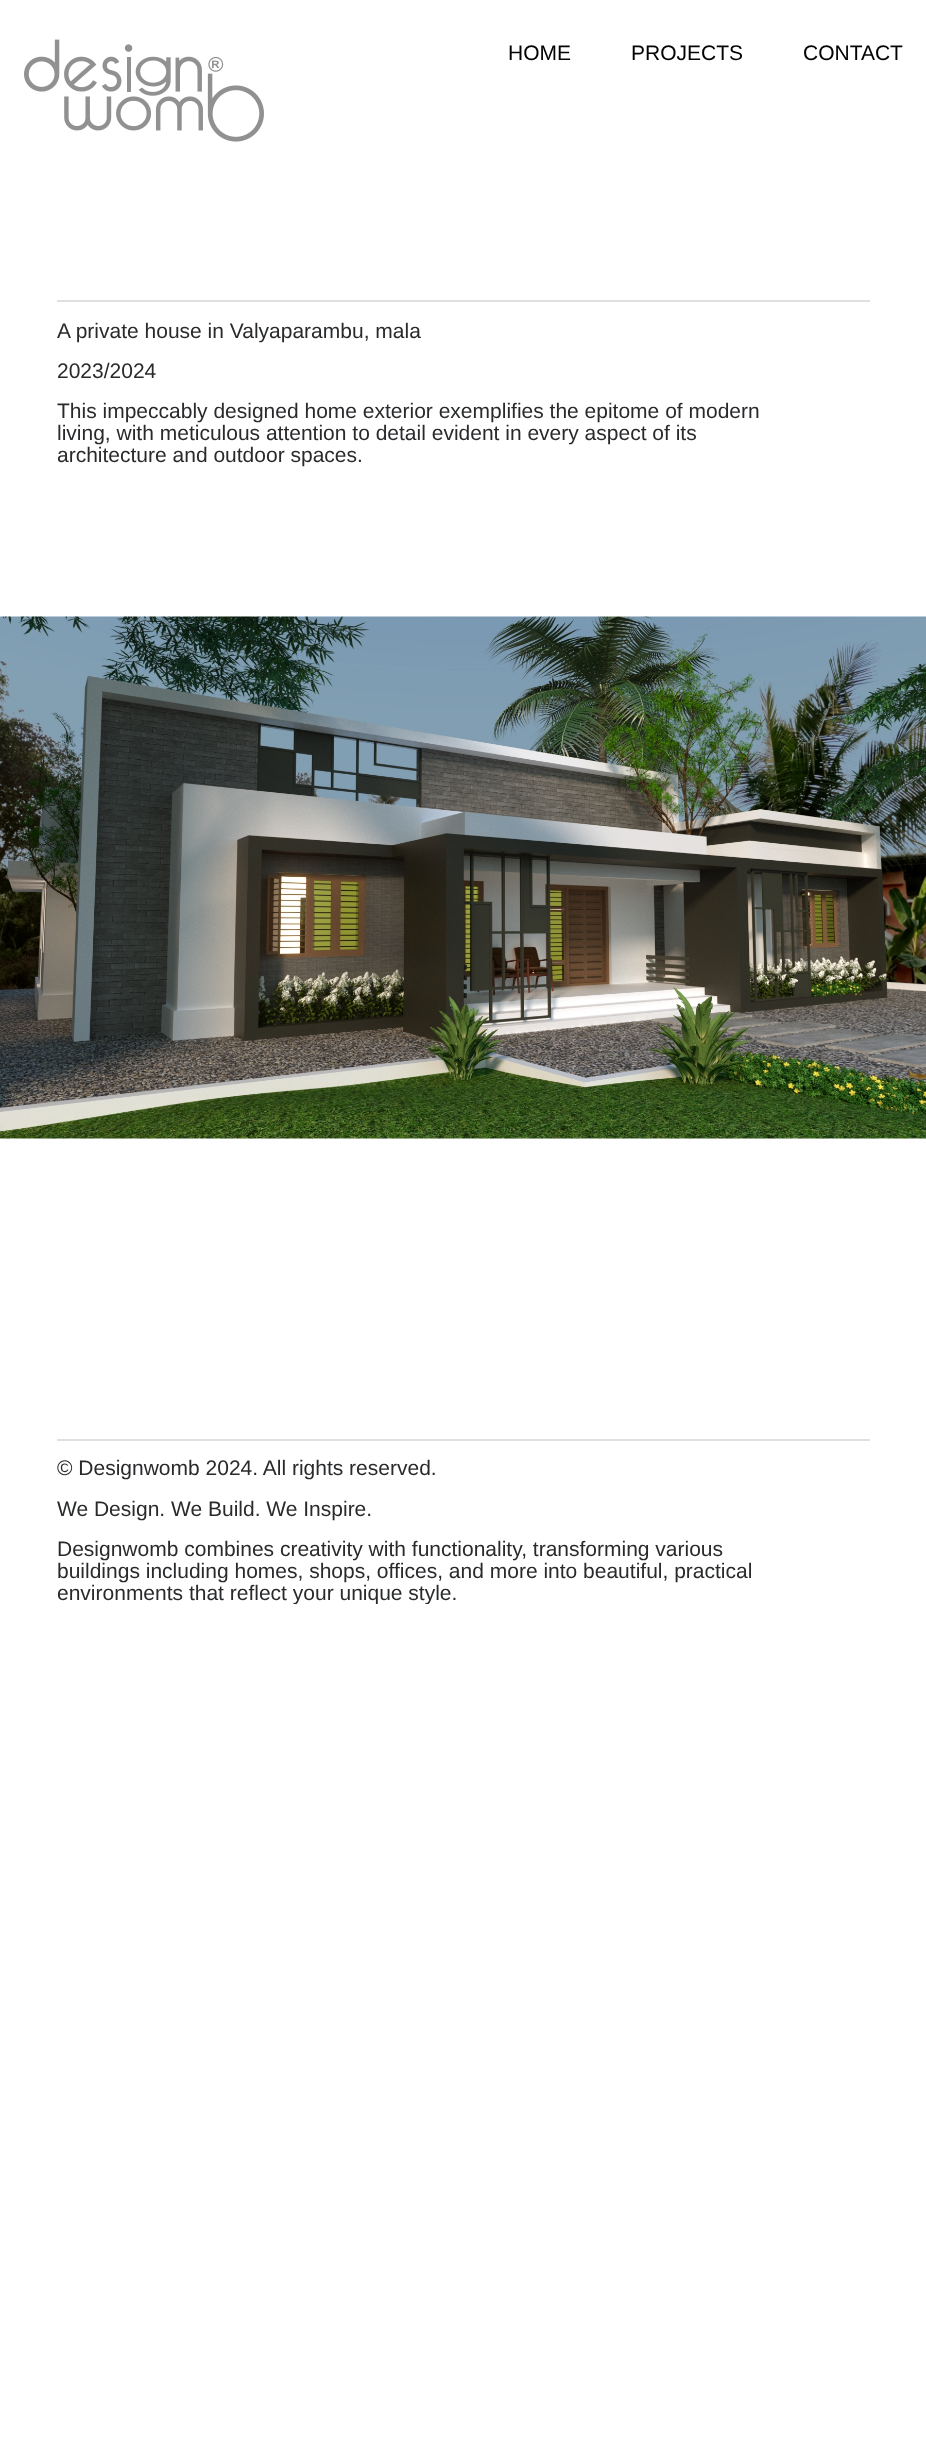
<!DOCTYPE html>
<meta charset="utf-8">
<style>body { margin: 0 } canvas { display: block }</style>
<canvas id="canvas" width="926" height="2450"></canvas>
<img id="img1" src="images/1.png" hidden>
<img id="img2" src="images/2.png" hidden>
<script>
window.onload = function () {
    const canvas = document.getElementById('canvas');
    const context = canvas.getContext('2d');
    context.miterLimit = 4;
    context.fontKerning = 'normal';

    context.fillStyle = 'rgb(255, 255, 255)';
    context.fillRect(0, 0, 926, 2450);
    context.drawImage(document.getElementById('img1'), 24, 39, 240, 103);
    context.fillStyle = 'rgb(224, 224, 224)';
    context.fillRect(57, 300, 813, 2);
    context.drawImage(document.getElementById('img2'), 0, 616, 926, 523);
    context.fillRect(57, 1439, 813, 2);
    context.font = '21px Liberation Sans';
    context.fillStyle = 'rgb(2, 2, 2)';
    context.fillText('HOME', 508, 60);
    context.fillText('PROJECTS', 631, 60);
    context.fillText('CONTACT', 803, 60);
    context.fillStyle = 'rgb(41, 42, 44)';
    context.fillText('A private house in Valyaparambu, mala', 57, 338);
    context.fillText('2023/2024', 57, 378);
    context.fillText('This impeccably designed home exterior exemplifies the epitome of modern', 57, 418);
    context.fillText('living, with meticulous attention to detail evident in every aspect of its', 57, 440);
    context.fillText('architecture and outdoor spaces.', 57, 462);
    context.fillText('© Designwomb 2024. All rights reserved.', 57, 1475);
    context.fillText('We Design. We Build. We Inspire.', 57, 1516);
    context.fillText('Designwomb combines creativity with functionality, transforming various', 57, 1556);
    context.fillText('buildings including homes, shops, offices, and more into beautiful, practical', 57, 1578);
    context.fillText('environments that reflect your unique style.', 57, 1600);
    context.fillStyle = 'rgb(255, 255, 255)';
    context.fillRect(293, 1604, 135, 1);
};
</script>
